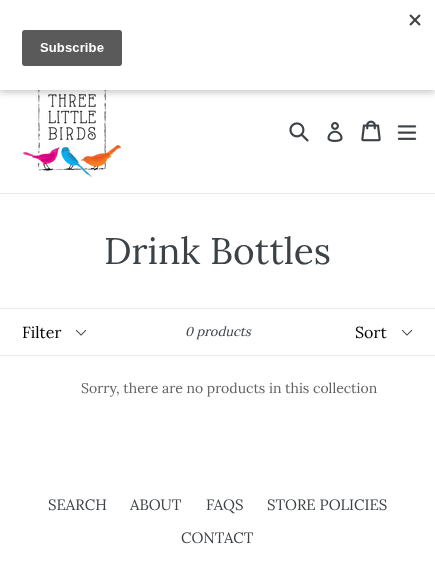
<!DOCTYPE html>
<meta charset="utf-8">
<style>body { margin: 0 } canvas { display: block }</style>
<canvas id="canvas" width="435" height="587"></canvas>
<img id="img1" src="images/2.png" hidden>
<img id="img2" src="images/1.png" hidden>
<img id="img3" src="images/3.png" hidden>
<img id="img4" src="images/4.png" hidden>
<img id="img5" src="images/5.png" hidden>
<img id="img6" src="images/6.png" hidden>
<img id="img7" src="images/7.png" hidden>
<script>
window.onload = function () {
    const canvas = document.getElementById('canvas');
    const context = canvas.getContext('2d');
    context.miterLimit = 4;
    context.fontKerning = 'normal';

    context.fillStyle = 'rgb(255, 255, 255)';
    context.fillRect(0, 0, 435, 587);
    context.drawImage(document.getElementById('img1'), 23, 90, 98, 88);
    context.fillStyle = 'rgba(0, 0, 0, 0.2)';
    context.filter = 'blur(3px)';
    context.beginPath();
    context.rect(0, 3, 435, 90);
    context.fill();
    context.filter = 'none';
    context.fillStyle = 'rgb(255, 255, 255)';
    context.fillRect(0, 0, 435, 90);
    context.drawImage(document.getElementById('img2'), 22, 14, 399, 52);
    context.fillStyle = 'rgb(232, 233, 235)';
    context.fillRect(0, 193, 435, 1);
    context.drawImage(document.getElementById('img3'), 289, 122, 20, 20);
    context.drawImage(document.getElementById('img4'), 327, 122, 16, 20);
    context.drawImage(document.getElementById('img5'), 361, 120, 20, 22);
    context.drawImage(document.getElementById('img6'), 397, 125, 20, 15);
    context.fillRect(0, 308, 435, 1);
    context.fillRect(0, 355, 435, 1);
    context.drawImage(document.getElementById('img7'), 75, 329, 12, 7);
    context.drawImage(document.getElementById('img7'), 401, 329, 12, 7);
    context.font = '37px Lora';
    context.fillStyle = 'rgb(61, 66, 70)';
    context.fillText('Drink Bottles', 104, 264);
    context.font = '16px Lora';
    context.fillStyle = 'rgb(0, 0, 0)';
    context.fillText('Filter', 22, 338);
    context.font = 'italic 13px Lora';
    context.fillStyle = 'rgb(61, 66, 70)';
    context.fillText('0 products', 185, 336);
    context.font = '16px Lora';
    context.fillStyle = 'rgb(0, 0, 0)';
    context.fillText('Sort', 355, 338);
    context.font = '14px Lora';
    context.fillStyle = 'rgb(96, 96, 96)';
    context.fillText('Sorry, there are no products in this collection', 81, 393);
    context.font = '15px Lora';
    context.fillStyle = 'rgb(61, 66, 70)';
    context.fillText('SEARCH', 48, 510);
    context.fillText('ABOUT', 130, 510);
    context.fillText('FAQS', 206, 510);
    context.fillText('STORE POLICIES', 267, 510);
    context.fillText('CONTACT', 181, 543);
};
</script>
